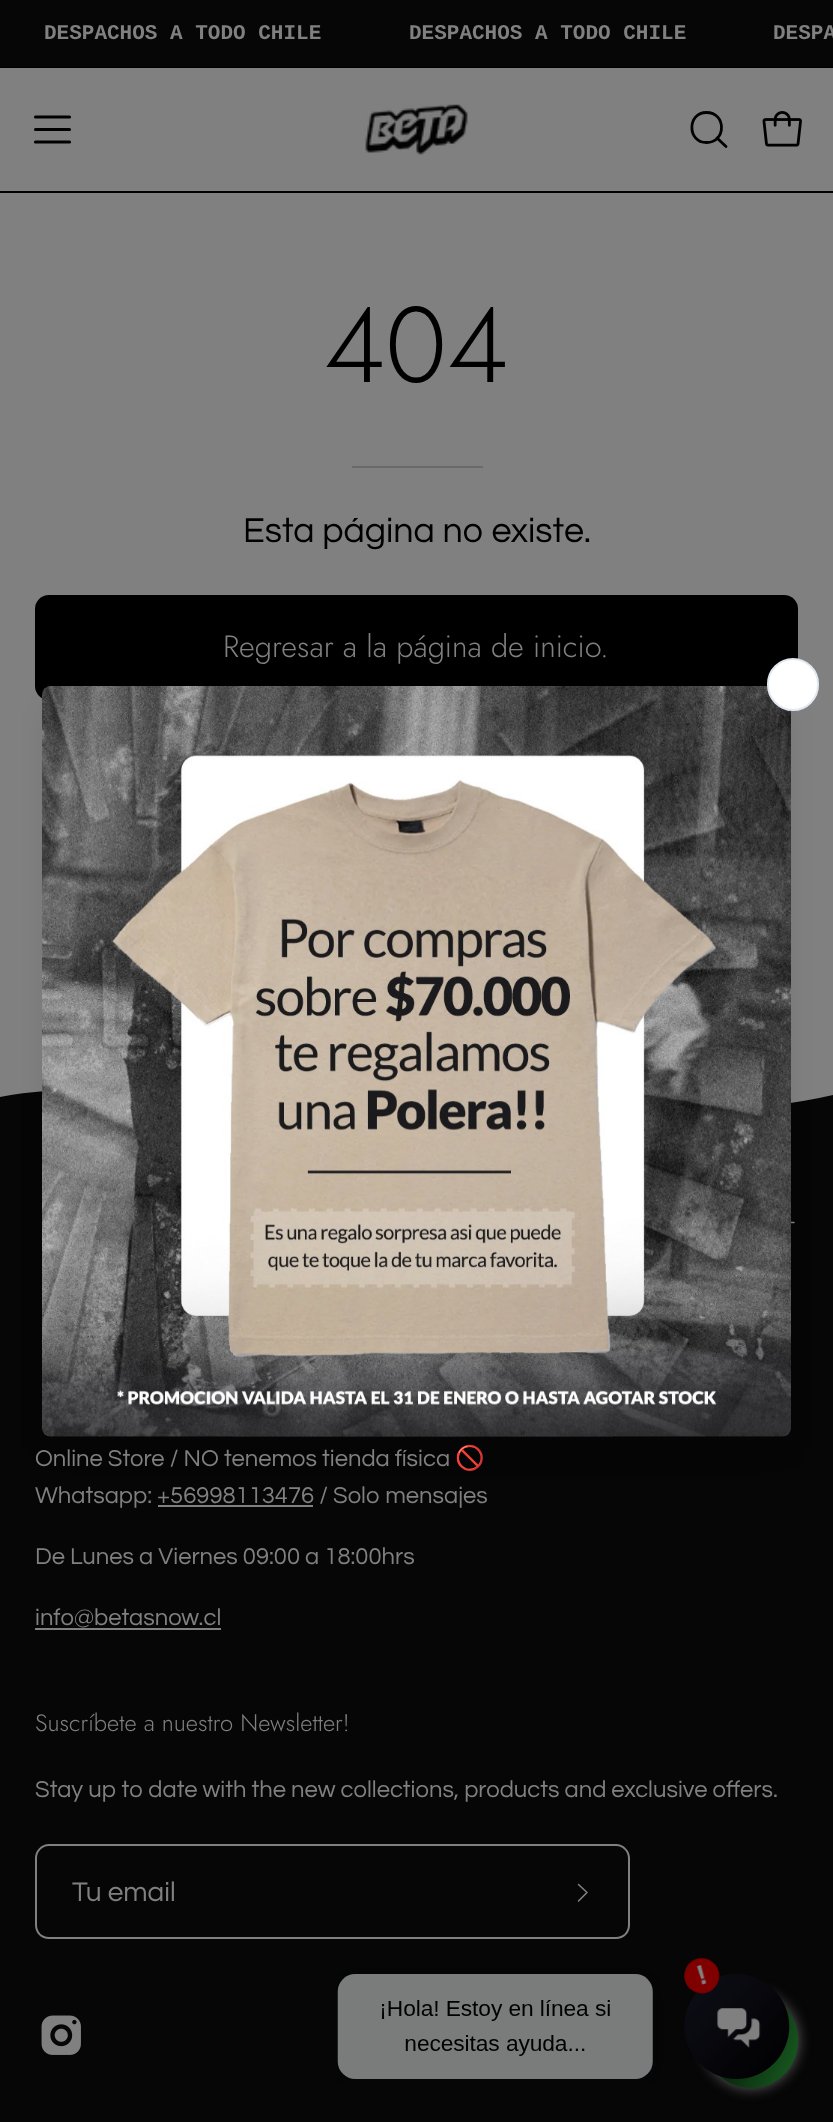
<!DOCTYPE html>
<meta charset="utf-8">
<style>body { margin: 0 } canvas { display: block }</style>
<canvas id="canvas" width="833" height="2122"></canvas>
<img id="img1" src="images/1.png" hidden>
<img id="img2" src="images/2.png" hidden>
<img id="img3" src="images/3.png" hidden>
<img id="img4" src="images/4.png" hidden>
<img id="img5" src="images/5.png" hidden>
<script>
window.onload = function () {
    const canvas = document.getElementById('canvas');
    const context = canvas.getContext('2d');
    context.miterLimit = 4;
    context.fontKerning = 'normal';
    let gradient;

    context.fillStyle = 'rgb(128, 128, 128)';
    context.fillRect(0, 0, 833, 2122);
    context.fillStyle = 'rgb(6, 6, 6)';
    context.fillRect(0, 0, 833, 67);
    context.fillStyle = 'rgb(0, 0, 0)';
    context.fillRect(0, 67, 833, 1);
    context.beginPath();
    context.moveTo(35.5, 129.5);
    context.lineTo(69.5, 129.5);
    context.moveTo(35.5, 117);
    context.lineTo(69.5, 117);
    context.moveTo(35.5, 142);
    context.lineTo(69.5, 142);
    context.strokeStyle = 'rgb(0, 0, 0)';
    context.lineWidth = 3.1;
    context.lineCap = 'round';
    context.lineJoin = 'round';
    context.stroke();
    context.drawImage(document.getElementById('img1'), 365, 103, 103, 52);
    context.beginPath();
    context.moveTo(706.5, 142.5);
    context.bezierCurveTo(726.5, 142.5, 726.5, 112.5, 706.5, 112.5);
    context.bezierCurveTo(687, 112.5, 687, 142.5, 706.5, 142.5);
    context.closePath();
    context.moveTo(717, 138);
    context.lineTo(726, 146.5);
    context.lineWidth = 2.8;
    context.stroke();
    context.drawImage(document.getElementById('img2'), 762, 111, 40, 36);
    context.fillRect(0, 191, 833, 2);
    context.fillStyle = 'rgb(106, 106, 106)';
    context.fillRect(352, 466, 131, 2);
    context.fillStyle = 'rgb(0, 0, 0)';
    context.beginPath();
    context.roundRect(35, 595, 763, 105, 14);
    context.fill();
    context.fillStyle = 'rgb(6, 6, 6)';
    context.fillRect(0, 1138, 833, 984);
    context.beginPath();
    context.moveTo(0, 1097);
    context.bezierCurveTo(95, 1078, 286, 1097, 417, 1113);
    context.bezierCurveTo(524, 1127, 726, 1119, 833, 1095);
    context.lineTo(833, 1138);
    context.lineTo(0, 1138);
    context.fill();
    context.beginPath();
    context.moveTo(777.5, 1222.5);
    context.lineTo(794, 1222.5);
    context.moveTo(786, 1214);
    context.lineTo(786, 1231);
    context.strokeStyle = 'rgb(128, 128, 128)';
    context.lineWidth = 1.5;
    context.stroke();
    context.fillStyle = 'rgba(0, 0, 0, 0.1)';
    context.filter = 'blur(13px)';
    context.beginPath();
    context.roundRect(47, 709, 739, 740, 4);
    context.fill();
    context.filter = 'none';
    context.fillStyle = 'rgb(0, 0, 0)';
    context.beginPath();
    context.roundRect(42, 686, 749, 751, 9);
    context.fill();
    context.drawImage(document.getElementById('img3'), 42, 686, 749, 751);
    context.fillStyle = 'rgb(255, 255, 255)';
    context.beginPath();
    context.roundRect(768, 659, 50, 51, 25);
    context.fill();
    context.strokeStyle = 'rgb(226, 232, 240)';
    context.lineWidth = 2;
    context.lineJoin = 'miter';
    context.stroke();
    context.fillStyle = 'rgb(128, 128, 128)';
    context.fillRect(158, 1505, 155, 2);
    context.fillRect(35, 1628, 186, 2);
    context.beginPath();
    context.moveTo(49, 1844);
    context.lineTo(536, 1844);
    context.lineTo(536, 1939);
    context.lineTo(49, 1939);
    context.bezierCurveTo(41, 1939, 35, 1933, 35, 1925);
    context.lineTo(35, 1858);
    context.bezierCurveTo(35, 1851, 41, 1844, 49, 1844);
    context.closePath();
    context.moveTo(49, 1846);
    context.lineTo(536, 1846);
    context.lineTo(536, 1937);
    context.lineTo(49, 1937);
    context.bezierCurveTo(42, 1937, 37, 1932, 37, 1925);
    context.lineTo(37, 1858);
    context.bezierCurveTo(37, 1852, 42, 1846, 49, 1846);
    context.closePath();
    context.fill('evenodd');
    context.beginPath();
    context.moveTo(536, 1844);
    context.lineTo(616, 1844);
    context.bezierCurveTo(624, 1844, 630, 1851, 630, 1858);
    context.lineTo(630, 1925);
    context.bezierCurveTo(630, 1933, 624, 1939, 616, 1939);
    context.lineTo(536, 1939);
    context.closePath();
    context.moveTo(536, 1846);
    context.lineTo(616, 1846);
    context.bezierCurveTo(623, 1846, 628, 1852, 628, 1858);
    context.lineTo(628, 1925);
    context.bezierCurveTo(628, 1932, 623, 1937, 616, 1937);
    context.lineTo(536, 1937);
    context.closePath();
    context.fill('evenodd');
    context.beginPath();
    context.moveTo(578.5, 1884.5);
    context.lineTo(587, 1892.5);
    context.lineTo(578.5, 1901);
    context.strokeStyle = 'rgb(128, 128, 128)';
    context.lineWidth = 1.6;
    context.lineJoin = 'round';
    context.stroke();
    context.drawImage(document.getElementById('img4'), 41, 2015, 40, 40);
    context.fillStyle = 'rgb(97, 97, 97)';
    context.filter = 'blur(7px)';
    context.beginPath();
    context.roundRect(704, 1993, 94, 95, 47);
    context.fill();
    context.filter = 'none';
    gradient = context.createLinearGradient(694, 2017, 808, 2064);
    gradient.addColorStop(0, 'rgb(0, 0, 0)');
    gradient.addColorStop(0, 'rgb(0, 0, 0)');
    gradient.addColorStop(1, 'rgb(24, 96, 33)');
    context.fillStyle = gradient;
    context.beginPath();
    context.roundRect(704, 1993, 94, 95, 47);
    context.fill();
    context.drawImage(document.getElementById('img5'), 337, 1957, 453, 125);
    context.font = 'bold 21px Liberation Mono';
    context.fillStyle = 'rgb(128, 128, 128)';
    context.fillText('DESPACHOS A TODO CHILE', 44, 39);
    context.fillText('DESPACHOS A TODO CHILE', 409, 39);
    context.fillText('DESPA', 773, 39);
    context.font = '300 107px Jost';
    context.fillStyle = 'rgb(0, 0, 0)';
    context.fillText('404', 324, 382);
    context.font = '35.75px Questrial';
    context.fillText('Esta página no existe.', 243, 542);
    context.font = '300 30.75px Jost';
    context.fillStyle = 'rgb(128, 128, 128)';
    context.fillText('Regresar a la página de inicio.', 223, 657);
    context.font = '23.8px Questrial';
    context.fillText('Online Store / NO tenemos tienda física', 35, 1466);
    context.font = '23.8px Noto Color Emoji';
    context.fillText('🚫', 455, 1466);
    context.font = '23.8px Questrial';
    context.fillText('Whatsapp: +56998113476 / Solo mensajes', 35, 1503);
    context.fillText('De Lunes a Viernes 09:00 a 18:00hrs', 35, 1564);
    context.fillText('info@betasnow.cl', 35, 1625);
    context.font = '300 23.8px Jost';
    context.fillText('Suscríbete a nuestro Newsletter!', 35, 1731);
    context.font = '23.8px Questrial';
    context.fillText('Stay up to date with the new collections, products and exclusive offers.', 35, 1797);
    context.font = '28px Questrial';
    context.fillText('Tu email', 72, 1901);
};
</script>
